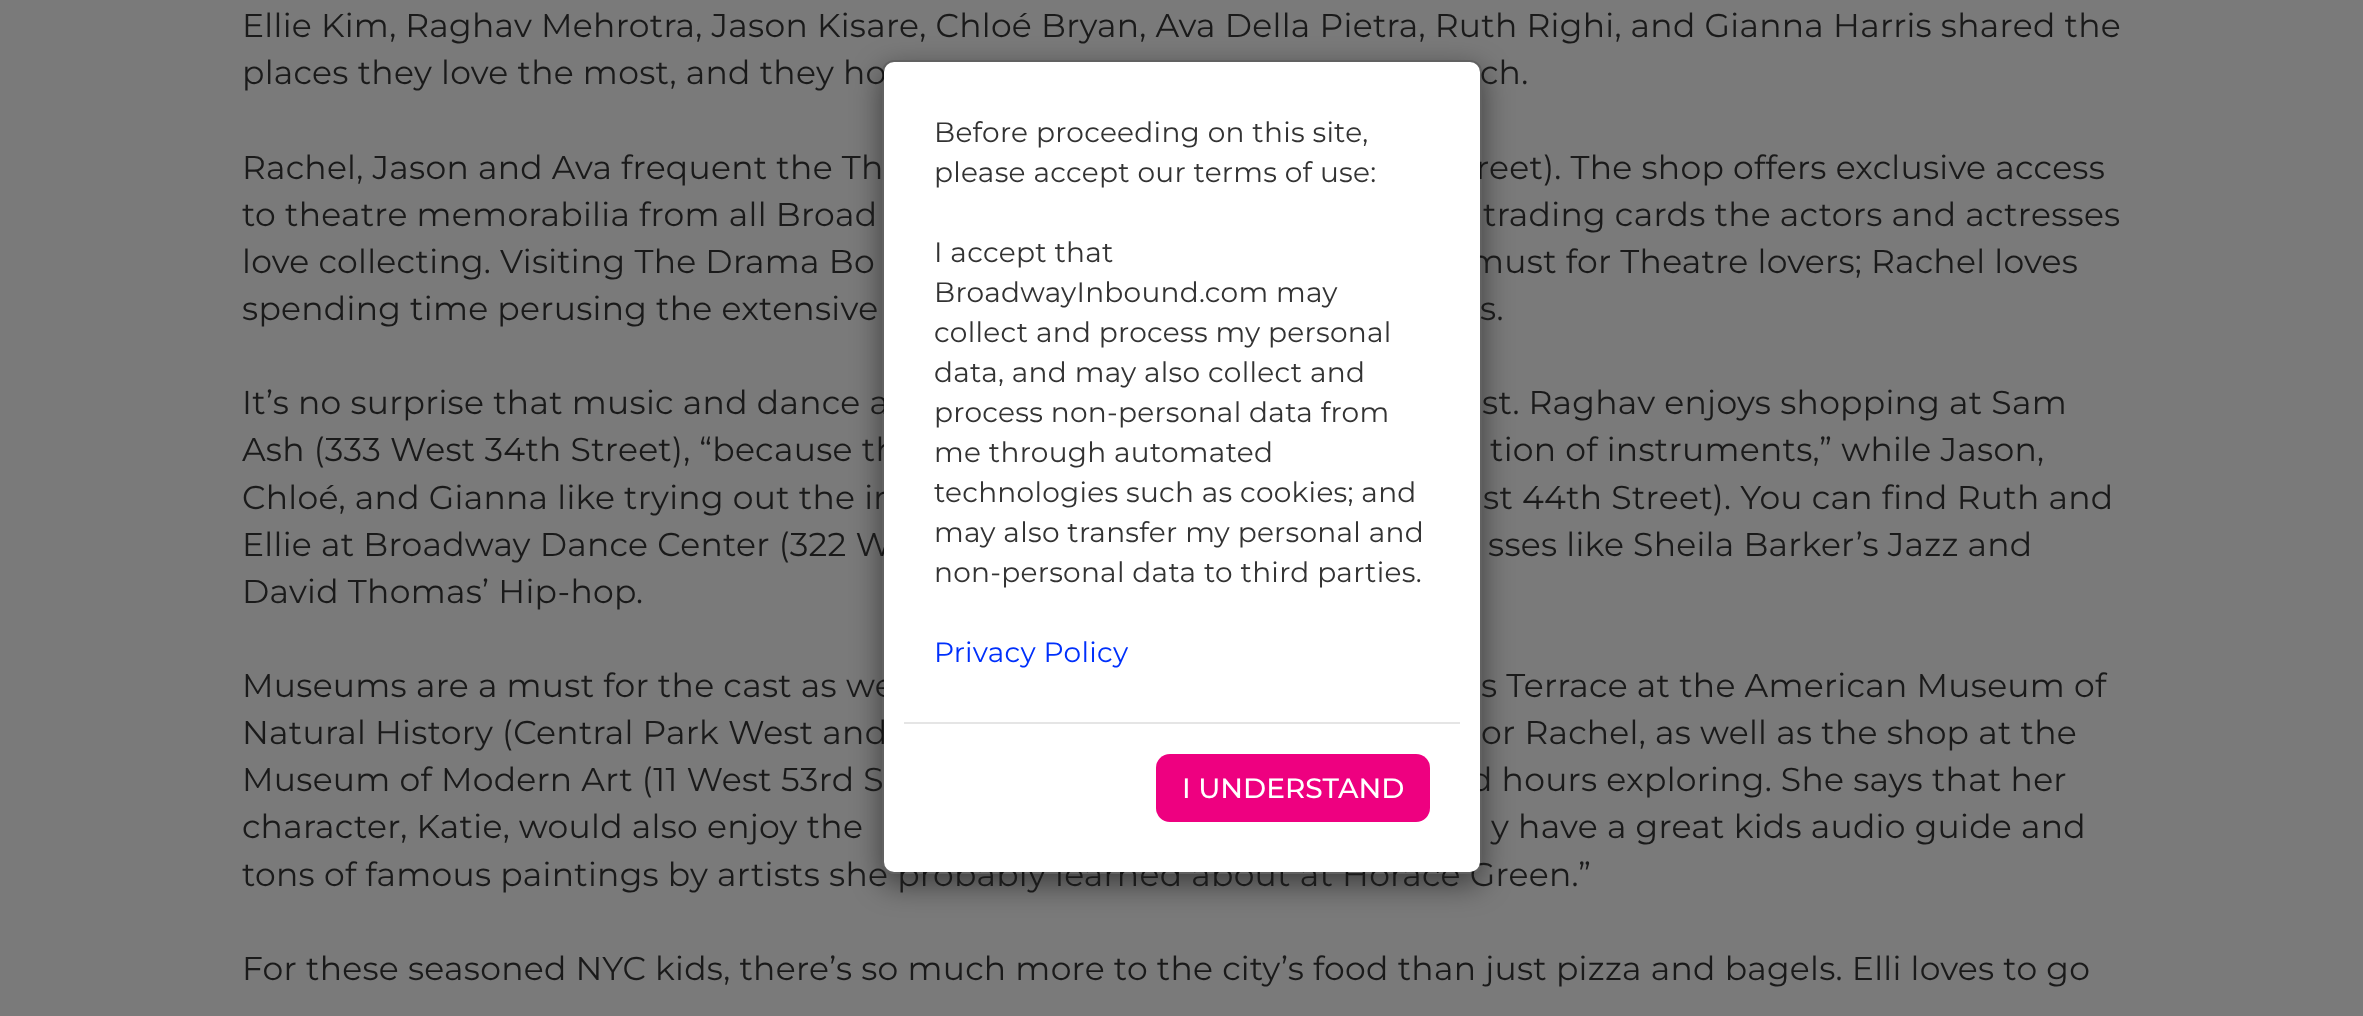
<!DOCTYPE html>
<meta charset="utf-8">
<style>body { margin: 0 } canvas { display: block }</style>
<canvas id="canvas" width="2363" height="1016"></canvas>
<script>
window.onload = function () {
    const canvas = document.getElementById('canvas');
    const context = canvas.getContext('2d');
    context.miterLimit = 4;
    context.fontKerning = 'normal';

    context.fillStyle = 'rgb(122, 122, 122)';
    context.fillRect(0, 0, 2363, 1016);
    context.save();
    context.beginPath();
    context.moveTo(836, 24);
    context.lineTo(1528, 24);
    context.lineTo(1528, 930);
    context.lineTo(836, 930);
    context.closePath();
    context.moveTo(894, 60);
    context.lineTo(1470, 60);
    context.bezierCurveTo(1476.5, 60, 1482, 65.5, 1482, 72);
    context.lineTo(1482, 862);
    context.bezierCurveTo(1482, 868.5, 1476.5, 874, 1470, 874);
    context.lineTo(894, 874);
    context.bezierCurveTo(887.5, 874, 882, 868.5, 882, 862);
    context.lineTo(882, 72);
    context.bezierCurveTo(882, 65.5, 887.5, 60, 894, 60);
    context.closePath();
    context.clip('evenodd');
    context.fillStyle = 'rgba(0, 0, 0, 0.5)';
    context.filter = 'blur(15px)';
    context.beginPath();
    context.roundRect(882, 70, 600, 814, 12);
    context.fill();
    context.filter = 'none';
    context.restore();
    context.letterSpacing = '0.28px';
    context.font = '33px Montserrat';
    context.fillStyle = 'rgb(26, 26, 26)';
    context.fillText('Ellie Kim, Raghav Mehrotra, Jason Kisare, Chloé Bryan, Ava Della Pietra, Ruth Righi, and Gianna Harris shared the', 242, 37);
    context.fillText('places they love the most, and they ho', 242, 84);
    context.fillText('ch.', 1480, 84);
    context.fillText('Rachel, Jason and Ava frequent the Th', 242, 179);
    context.fillText('reet). The shop offers exclusive access', 1476, 179);
    context.fillText('to theatre memorabilia from all Broad', 242, 226);
    context.fillText('trading cards the actors and actresses', 1483, 226);
    context.fillText('love collecting. Visiting The Drama Bo', 242, 273);
    context.fillText('must for Theatre lovers; Rachel loves', 1469, 273);
    context.fillText('spending time perusing the extensive', 242, 320);
    context.fillText('s.', 1480, 320);
    context.fillText('It’s no surprise that music and dance a', 242, 414);
    context.fillText('st. Raghav enjoys shopping at Sam', 1482, 414);
    context.fillText('Ash (333 West 34th Street), “because th', 242, 461);
    context.fillText('tion of instruments,” while Jason,', 1490, 461);
    context.fillText('Chloé, and Gianna like trying out the in', 242, 509);
    context.fillText('st 44th Street). You can find Ruth and', 1483, 509);
    context.fillText('Ellie at Broadway Dance Center (322 W', 242, 556);
    context.fillText('sses like Sheila Barker’s Jazz and', 1488, 556);
    context.fillText('David Thomas’ Hip-hop.', 242, 603);
    context.fillText('Museums are a must for the cast as we', 242, 697);
    context.fillText('s Terrace at the American Museum of', 1481, 697);
    context.fillText('Natural History (Central Park West and', 242, 744);
    context.fillText('or Rachel, as well as the shop at the', 1481, 744);
    context.fillText('Museum of Modern Art (11 West 53rd S', 242, 791);
    context.fillText('d hours exploring. She says that her', 1470, 791);
    context.fillText('character, Katie, would also enjoy the', 242, 838);
    context.fillText('y have a great kids audio guide and', 1491, 838);
    context.fillText('tons of famous paintings by artists she probably learned about at Horace Green.”', 242, 886);
    context.fillText('For these seasoned NYC kids, there’s so much more to the city’s food than just pizza and bagels. Elli loves to go', 242, 980);
    context.fillStyle = 'rgb(255, 255, 255)';
    context.beginPath();
    context.roundRect(884, 62, 596, 810, 10);
    context.fill();
    context.beginPath();
    context.roundRect(883, 61, 598, 812, 11);
    context.strokeStyle = 'rgba(0, 0, 0, 0.2)';
    context.lineWidth = 2;
    context.stroke();
    context.font = '28px Montserrat';
    context.fillStyle = 'rgb(51, 51, 51)';
    context.fillText('Before proceeding on this site,', 934, 142);
    context.fillText('please accept our terms of use:', 934, 182);
    context.fillText('I accept that', 934, 262);
    context.fillText('BroadwayInbound.com may', 934, 302);
    context.fillText('collect and process my personal', 934, 342);
    context.fillText('data, and may also collect and', 934, 382);
    context.fillText('process non-personal data from', 934, 422);
    context.fillText('me through automated', 934, 462);
    context.fillText('technologies such as cookies; and', 934, 502);
    context.fillText('may also transfer my personal and', 934, 542);
    context.fillText('non-personal data to third parties.', 934, 582);
    context.fillStyle = 'rgb(0, 48, 251)';
    context.fillText('Privacy Policy', 934, 662);
    context.fillStyle = 'rgb(229, 229, 229)';
    context.fillRect(904, 722, 556, 2);
    context.fillStyle = 'rgb(238, 0, 128)';
    context.beginPath();
    context.roundRect(1156, 754, 274, 68, 14);
    context.fill();
    context.letterSpacing = '0px';
    context.font = '500 28px Montserrat';
    context.fillStyle = 'rgb(255, 255, 255)';
    context.fillText('I UNDERSTAND', 1182, 798);
};
</script>
